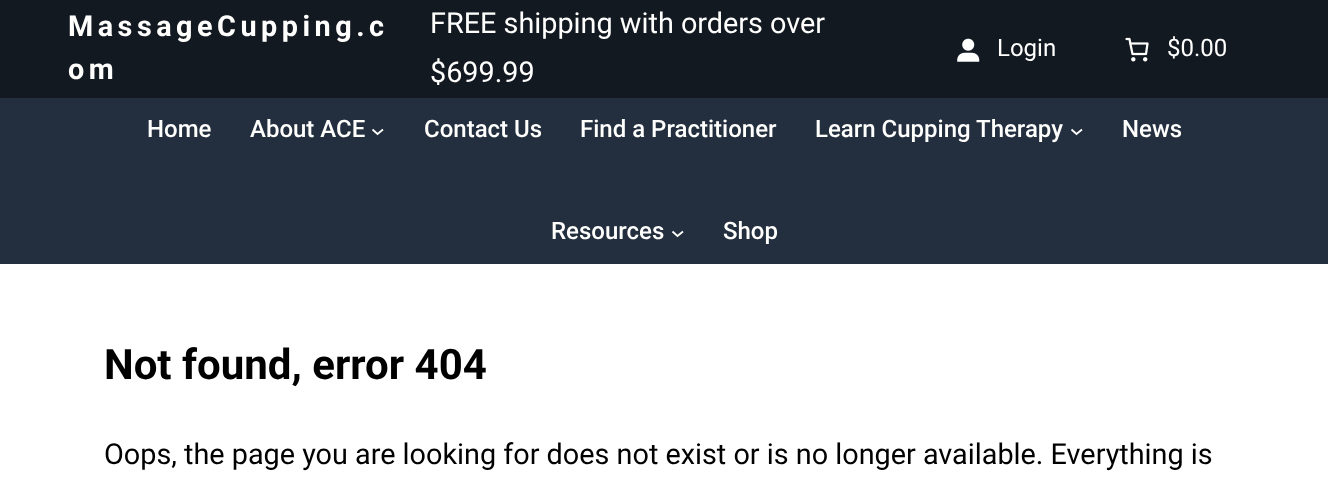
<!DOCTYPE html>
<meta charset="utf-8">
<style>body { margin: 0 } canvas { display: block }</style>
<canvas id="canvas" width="1328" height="486"></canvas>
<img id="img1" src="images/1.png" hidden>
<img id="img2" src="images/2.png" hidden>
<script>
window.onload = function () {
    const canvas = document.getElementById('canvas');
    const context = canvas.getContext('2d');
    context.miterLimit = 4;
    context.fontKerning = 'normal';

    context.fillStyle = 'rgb(255, 255, 255)';
    context.fillRect(0, 0, 1328, 486);
    context.fillStyle = 'rgb(19, 25, 33)';
    context.fillRect(0, 0, 1328, 98);
    context.drawImage(document.getElementById('img1'), 957, 38, 23, 24);
    context.drawImage(document.getElementById('img2'), 1125, 37, 24, 25);
    context.fillStyle = 'rgb(35, 47, 62)';
    context.fillRect(0, 98, 1328, 166);
    context.beginPath();
    context.moveTo(372.5, 129.5);
    context.lineTo(377.5, 134);
    context.lineTo(383, 129.5);
    context.strokeStyle = 'rgb(255, 255, 254)';
    context.lineWidth = 1.8;
    context.stroke();
    context.beginPath();
    context.moveTo(1071.5, 129.5);
    context.lineTo(1076.5, 134);
    context.lineTo(1082, 129.5);
    context.stroke();
    context.beginPath();
    context.moveTo(672.5, 231.5);
    context.lineTo(677.5, 236);
    context.lineTo(683, 231.5);
    context.stroke();
    context.letterSpacing = '4.5px';
    context.font = 'bold 28.8px Roboto';
    context.fillStyle = 'rgb(255, 255, 254)';
    context.fillText('MassageCupping.c', 68, 36);
    context.fillText('om', 68, 79);
    context.letterSpacing = '0px';
    context.font = '28.8px Roboto';
    context.fillText('FREE shipping with orders over', 430, 33);
    context.fillText('$699.99', 430, 82);
    context.font = '24px Roboto';
    context.fillText('Login', 997, 56);
    context.fillText('$0.00', 1167, 56);
    context.font = '500 24px Roboto';
    context.fillText('Home', 147, 137);
    context.fillText('About ACE', 250, 137);
    context.fillText('Contact Us', 424, 137);
    context.fillText('Find a Practitioner', 580, 137);
    context.fillText('Learn Cupping Therapy', 815, 137);
    context.fillText('News', 1122, 137);
    context.fillText('Resources', 551, 239);
    context.fillText('Shop', 723, 239);
    context.font = 'bold 42px Roboto';
    context.fillStyle = 'rgb(0, 0, 1)';
    context.fillText('Not found, error 404', 104, 379);
    context.font = '28.8px Roboto';
    context.fillText('Oops, the page you are looking for does not exist or is no longer available. Everything is', 104, 464);
};
</script>
